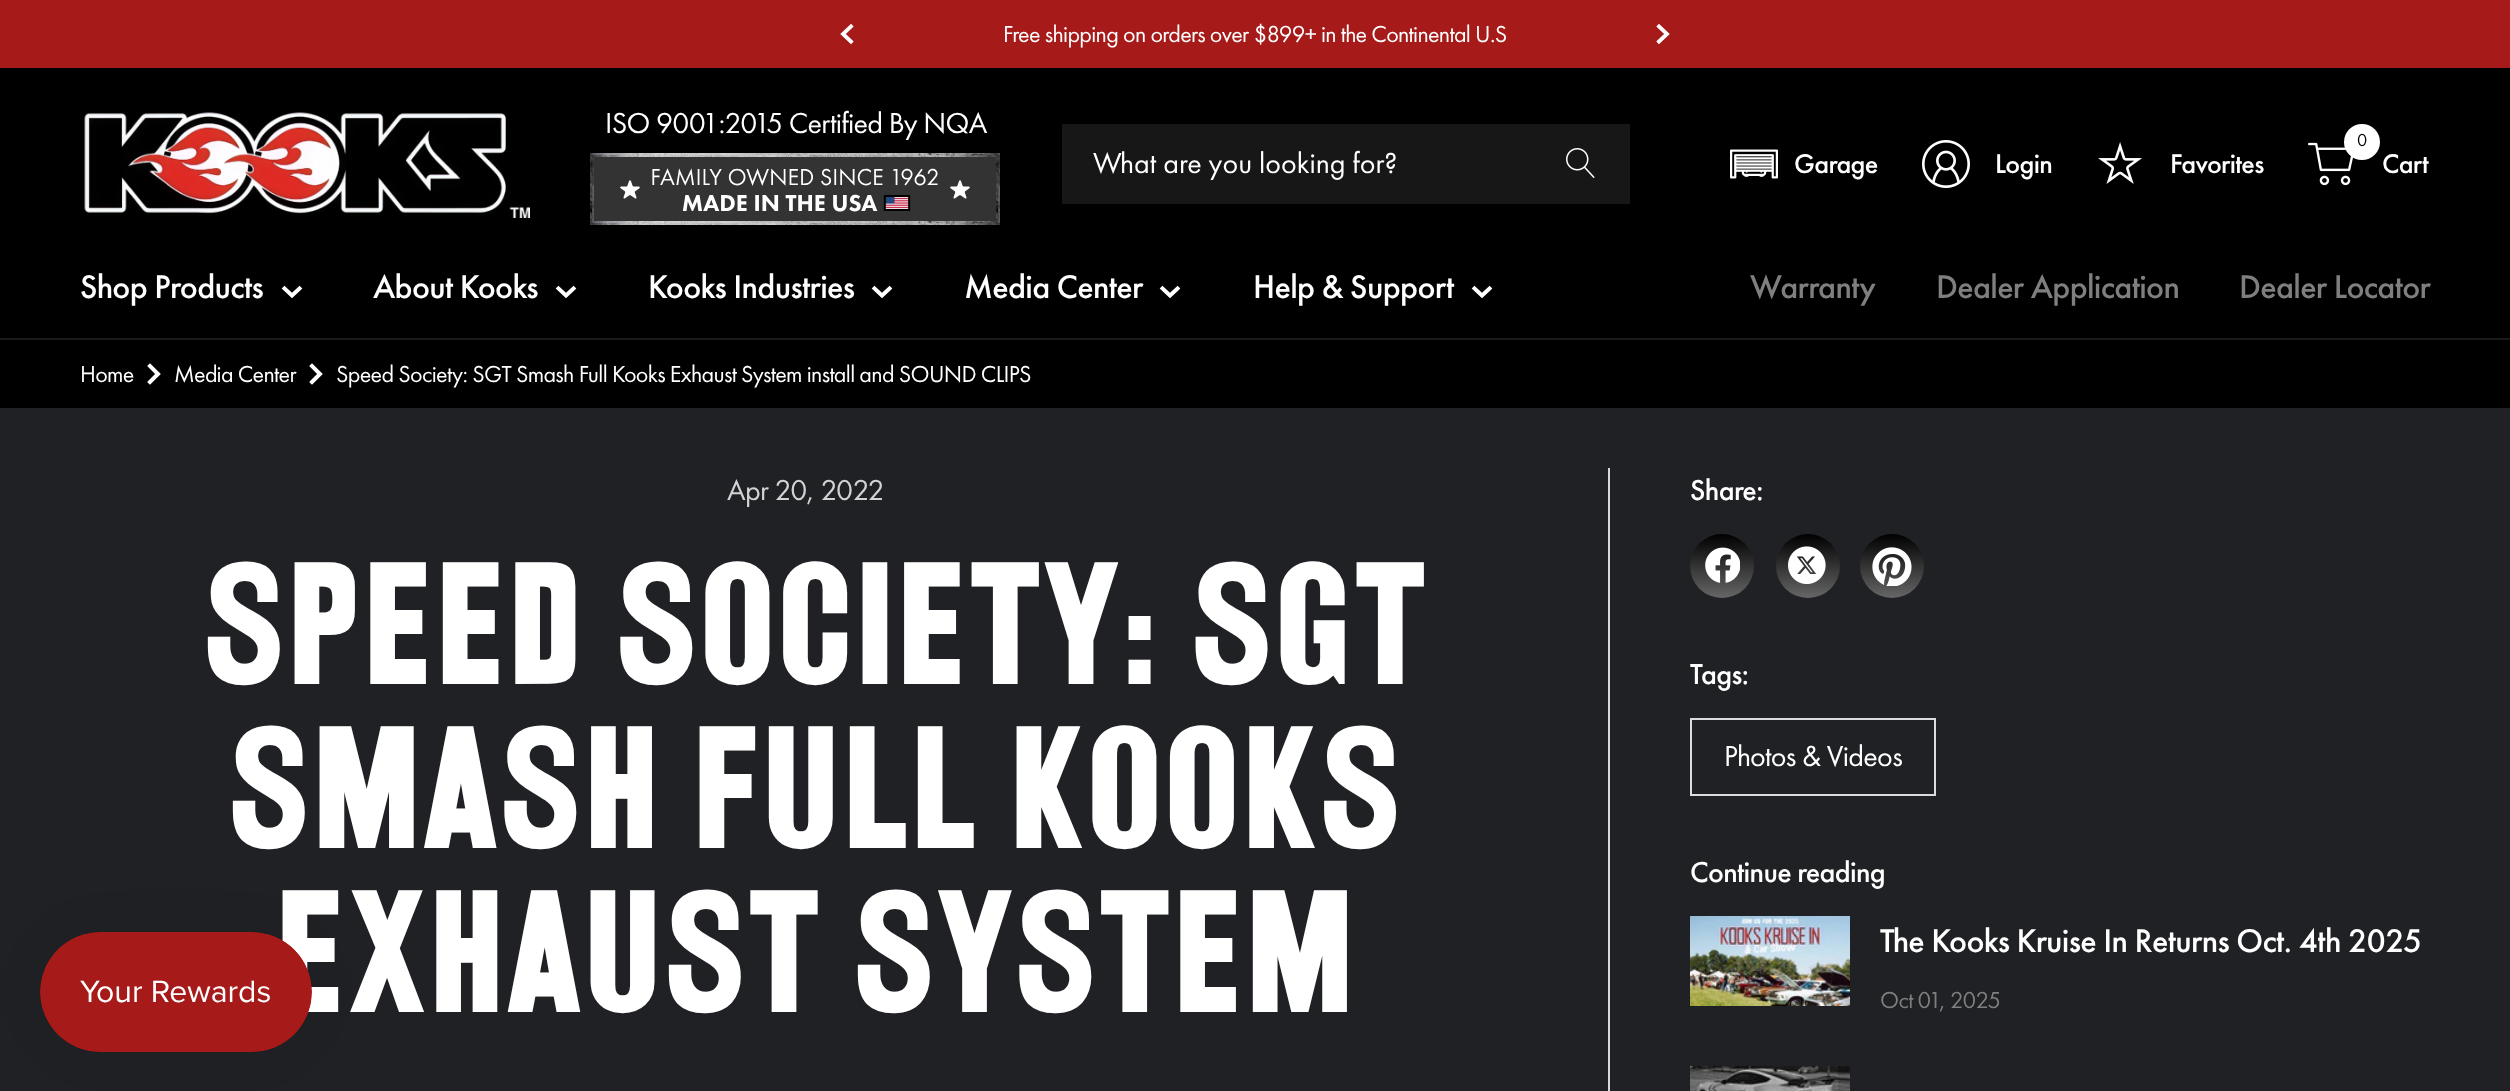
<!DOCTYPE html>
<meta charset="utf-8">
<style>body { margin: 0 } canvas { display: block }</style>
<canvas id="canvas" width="2510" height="1091"></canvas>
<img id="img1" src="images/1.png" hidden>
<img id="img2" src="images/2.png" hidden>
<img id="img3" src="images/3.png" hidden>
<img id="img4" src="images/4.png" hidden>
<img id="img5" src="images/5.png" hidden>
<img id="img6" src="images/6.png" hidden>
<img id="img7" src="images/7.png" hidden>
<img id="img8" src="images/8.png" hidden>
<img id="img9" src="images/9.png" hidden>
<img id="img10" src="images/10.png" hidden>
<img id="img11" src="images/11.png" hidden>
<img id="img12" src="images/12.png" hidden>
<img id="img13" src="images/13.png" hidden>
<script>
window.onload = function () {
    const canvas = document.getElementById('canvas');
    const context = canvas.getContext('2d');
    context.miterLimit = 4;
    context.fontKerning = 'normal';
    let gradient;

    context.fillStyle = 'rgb(166, 26, 25)';
    context.fillRect(0, 0, 2510, 1091);
    context.beginPath();
    context.moveTo(851, 41.5);
    context.lineTo(843, 34);
    context.lineTo(851, 26.5);
    context.strokeStyle = 'rgb(255, 255, 255)';
    context.lineWidth = 3.8;
    context.lineCap = 'square';
    context.stroke();
    context.beginPath();
    context.moveTo(1659, 41.5);
    context.lineTo(1667, 34);
    context.lineTo(1659, 26.5);
    context.stroke();
    context.fillStyle = 'rgb(0, 0, 0)';
    context.fillRect(0, 68, 2510, 270);
    context.drawImage(document.getElementById('img1'), 84, 112, 446, 106);
    context.drawImage(document.getElementById('img2'), 590, 153, 410, 72);
    context.fillStyle = 'rgb(23, 23, 23)';
    context.fillRect(1062, 124, 568, 80);
    context.drawImage(document.getElementById('img3'), 1566, 148, 29, 30);
    context.drawImage(document.getElementById('img4'), 1730, 149, 48, 30);
    context.drawImage(document.getElementById('img5'), 1922, 140, 48, 48);
    context.drawImage(document.getElementById('img6'), 2098, 142, 44, 42);
    context.drawImage(document.getElementById('img7'), 2308, 142, 46, 44);
    context.fillStyle = 'rgb(255, 255, 255)';
    context.beginPath();
    context.arc(2362, 142, 18, 0, 2 * Math.PI);
    context.fill();
    context.beginPath();
    context.moveTo(299.5, 288.5);
    context.lineTo(292, 295.5);
    context.lineTo(284.5, 288.5);
    context.lineWidth = 4;
    context.stroke();
    context.beginPath();
    context.moveTo(573.5, 288.5);
    context.lineTo(566, 295.5);
    context.lineTo(558.5, 288.5);
    context.stroke();
    context.beginPath();
    context.moveTo(889.5, 288.5);
    context.lineTo(882, 295.5);
    context.lineTo(874.5, 288.5);
    context.stroke();
    context.beginPath();
    context.moveTo(1177.5, 288.5);
    context.lineTo(1170, 295.5);
    context.lineTo(1162.5, 288.5);
    context.stroke();
    context.beginPath();
    context.moveTo(1489.5, 288.5);
    context.lineTo(1482, 295.5);
    context.lineTo(1474.5, 288.5);
    context.stroke();
    context.fillStyle = 'rgb(26, 26, 26)';
    context.fillRect(0, 338, 2510, 2);
    context.fillStyle = 'rgb(0, 0, 0)';
    context.fillRect(0, 340, 2510, 68);
    context.beginPath();
    context.moveTo(150, 382);
    context.lineTo(158, 374);
    context.lineTo(150, 366);
    context.stroke();
    context.beginPath();
    context.moveTo(312, 382);
    context.lineTo(320, 374);
    context.lineTo(312, 366);
    context.stroke();
    context.fillStyle = 'rgb(32, 33, 36)';
    context.fillRect(0, 408, 2510, 683);
    context.fillStyle = 'rgb(216, 216, 216)';
    context.fillRect(1608, 468, 2, 623);
    gradient = context.createLinearGradient(1722, 534, 1722, 598);
    gradient.addColorStop(0, 'rgb(0, 0, 0)');
    gradient.addColorStop(1, 'rgb(102, 102, 102)');
    context.fillStyle = gradient;
    context.beginPath();
    context.arc(1722, 566, 32, 0, 2 * Math.PI);
    context.fill();
    context.drawImage(document.getElementById('img8'), 1705, 547, 35, 36);
    gradient = context.createLinearGradient(1808, 534, 1808, 598);
    gradient.addColorStop(0, 'rgb(0, 0, 0)');
    gradient.addColorStop(1, 'rgb(102, 102, 102)');
    context.fillStyle = gradient;
    context.beginPath();
    context.arc(1808, 566, 32, 0, 2 * Math.PI);
    context.fill();
    context.drawImage(document.getElementById('img9'), 1788, 546, 38, 38);
    gradient = context.createLinearGradient(1892, 534, 1892, 598);
    gradient.addColorStop(0, 'rgb(0, 0, 0)');
    gradient.addColorStop(1, 'rgb(102, 102, 102)');
    context.fillStyle = gradient;
    context.beginPath();
    context.arc(1892, 566, 32, 0, 2 * Math.PI);
    context.fill();
    context.drawImage(document.getElementById('img10'), 1872, 547, 40, 39);
    context.strokeStyle = 'rgb(218, 220, 224)';
    context.lineWidth = 2;
    context.strokeRect(1691, 719, 244, 76);
    context.drawImage(document.getElementById('img11'), 1690, 916, 160, 90);
    context.drawImage(document.getElementById('img12'), 1690, 1066, 160, 25);
    context.fillStyle = 'rgba(0, 0, 0, 0.05)';
    context.filter = 'blur(25px)';
    context.beginPath();
    context.roundRect(40, 932, 272, 120, 60);
    context.fill();
    context.filter = 'none';
    context.letterSpacing = '-0.68px';
    context.font = '24px Futura PT';
    context.fillStyle = 'rgb(255, 255, 255)';
    context.fillText('Free shipping on orders over $899+ in the Continental U.S', 1003, 42);
    context.font = '30px Futura PT';
    context.fillText('ISO 9001:2015 Certified By NQA', 605, 133);
    context.letterSpacing = '0px';
    context.fillText('What are you looking for?', 1093, 173);
    context.letterSpacing = '-0.68px';
    context.font = '500 28px Futura PT';
    context.fillText('Garage', 1794, 173);
    context.fillText('Login', 1995, 173);
    context.fillText('Favorites', 2170, 173);
    context.font = '18px Futura PT';
    context.fillStyle = 'rgb(0, 0, 0)';
    context.fillText('0', 2357, 146);
    context.font = '500 28px Futura PT';
    context.fillStyle = 'rgb(255, 255, 255)';
    context.fillText('Cart', 2382, 173);
    context.font = '500 34px Futura PT';
    context.fillText('Shop Products', 80, 298);
    context.fillText('About Kooks', 373, 298);
    context.fillText('Kooks Industries', 648, 298);
    context.fillText('Media Center', 964, 298);
    context.fillText('Help & Support', 1253, 298);
    context.fillStyle = 'rgb(127, 127, 127)';
    context.fillText('Warranty', 1750, 298);
    context.fillText('Dealer Application', 1936, 298);
    context.fillText('Dealer Locator', 2239, 298);
    context.font = '24px Futura PT';
    context.fillStyle = 'rgb(255, 255, 255)';
    context.fillText('Home', 80, 382);
    context.fillText('Media Center', 174, 382);
    context.fillText('Speed Society: SGT Smash Full Kooks Exhaust System install and SOUND CLIPS', 336, 382);
    context.font = '30px Futura PT';
    context.fillStyle = 'rgb(210, 211, 211)';
    context.fillText('Apr 20, 2022', 727, 500);
    context.letterSpacing = '-1.5px';
    context.font = '500 150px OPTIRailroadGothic';
    context.fillStyle = 'rgb(255, 255, 255)';
    context.fillText('Speed Society: SGT', 192, 684);
    context.fillText('Smash Full Kooks', 217, 848);
    context.fillText('Exhaust System', 264, 1012);
    context.letterSpacing = '-0.68px';
    context.font = '500 30px Futura PT';
    context.fillText('Share:', 1690, 500);
    context.fillText('Tags:', 1690, 684);
    context.font = '30px Futura PT';
    context.fillText('Photos & Videos', 1724, 766);
    context.font = '500 30px Futura PT';
    context.fillText('Continue reading', 1690, 882);
    context.font = '500 34px Futura PT';
    context.fillText('The Kooks Kruise In Returns Oct. 4th 2025', 1880, 952);
    context.font = '24px Futura PT';
    context.fillStyle = 'rgb(127, 127, 127)';
    context.fillText('Oct 01, 2025', 1880, 1008);
    context.drawImage(document.getElementById('img13'), 40, 932, 272, 120);
};
</script>
